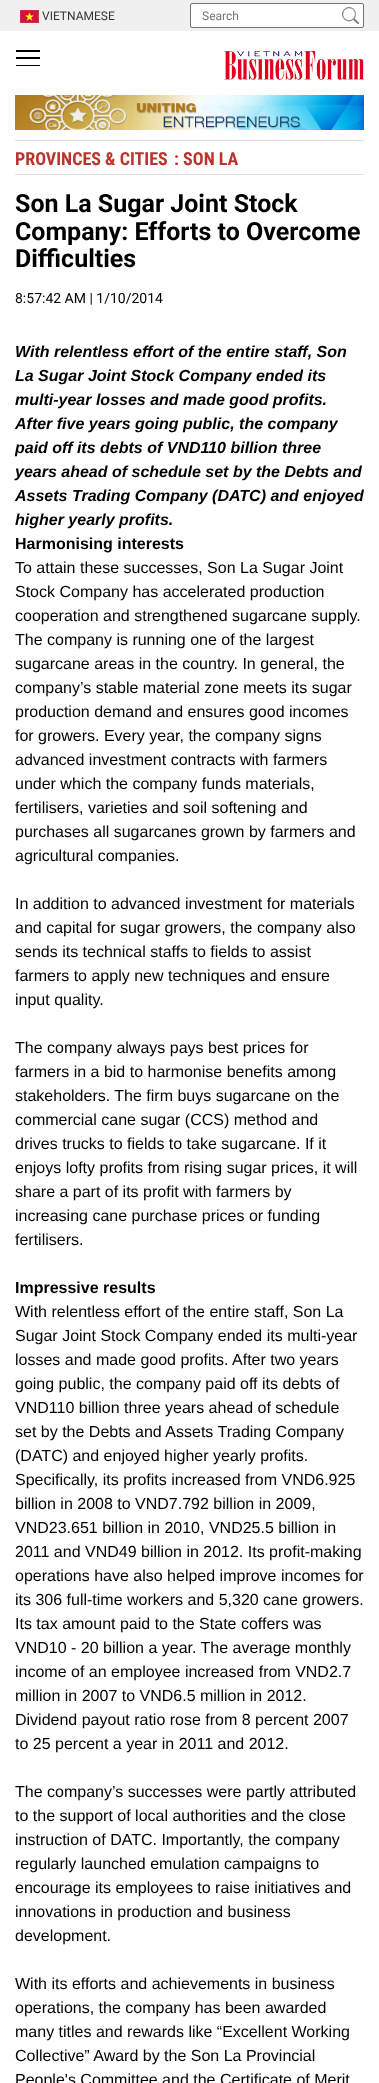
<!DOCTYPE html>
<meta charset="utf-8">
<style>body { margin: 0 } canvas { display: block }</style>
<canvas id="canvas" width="379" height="2083"></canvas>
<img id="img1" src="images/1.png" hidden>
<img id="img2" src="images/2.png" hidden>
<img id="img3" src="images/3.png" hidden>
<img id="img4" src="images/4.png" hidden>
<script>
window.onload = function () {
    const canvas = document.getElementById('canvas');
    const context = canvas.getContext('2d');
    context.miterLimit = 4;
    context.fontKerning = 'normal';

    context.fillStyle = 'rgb(255, 255, 255)';
    context.fillRect(0, 0, 379, 2083);
    context.fillStyle = 'rgb(240, 240, 240)';
    context.fillRect(0, 0, 379, 31);
    context.drawImage(document.getElementById('img1'), 20, 10, 19, 13);
    context.fillStyle = 'rgb(255, 255, 255)';
    context.beginPath();
    context.roundRect(190.5, 3.5, 173, 24, 1.5);
    context.fill();
    context.strokeStyle = 'rgb(118, 118, 118)';
    context.stroke();
    context.drawImage(document.getElementById('img2'), 342, 7, 17, 17);
    context.fillStyle = 'rgb(0, 0, 0)';
    context.fillRect(16, 50, 24, 2);
    context.fillRect(16, 57, 24, 2);
    context.fillRect(16, 65, 24, 1);
    context.drawImage(document.getElementById('img3'), 224, 51, 140, 29);
    context.drawImage(document.getElementById('img4'), 15, 95, 349, 35);
    context.fillStyle = 'rgb(222, 222, 222)';
    context.fillRect(15, 140, 349, 1);
    context.fillRect(15, 174, 349, 1);
    context.font = '12px Roboto';
    context.fillStyle = 'rgb(51, 51, 51)';
    context.fillText('VIETNAMESE', 42, 20);
    context.fillStyle = 'rgb(117, 117, 117)';
    context.fillText('Search', 202, 20);
    context.font = 'bold 18px Roboto Condensed';
    context.fillStyle = 'rgb(187, 52, 44)';
    context.fillText('PROVINCES & CITIES', 15, 165);
    context.fillText(': SON LA', 174, 165);
    context.font = 'bold 25px Roboto';
    context.fillStyle = 'rgb(0, 0, 0)';
    context.fillText('Son La Sugar Joint Stock', 15, 212);
    context.fillText('Company: Efforts to Overcome', 15, 240);
    context.fillText('Difficulties', 15, 267);
    context.font = '14px Roboto';
    context.fillText('8:57:42 AM | 1/10/2014', 15, 303);
    context.font = 'italic bold 16px Liberation Sans';
    context.fillText('With relentless effort of the entire staff, Son', 15, 357);
    context.fillText('La Sugar Joint Stock Company ended its', 15, 381);
    context.fillText('multi-year losses and made good profits.', 15, 405);
    context.fillText('After five years going public, the company', 15, 429);
    context.fillText('paid off its debts of VND110 billion three', 15, 453);
    context.fillText('years ahead of schedule set by the Debts and', 15, 477);
    context.fillText('Assets Trading Company (DATC) and enjoyed', 15, 501);
    context.fillText('higher yearly profits.', 15, 525);
    context.font = 'bold 16px Liberation Sans';
    context.fillText('Harmonising interests', 15, 549);
    context.font = '16px Liberation Sans';
    context.fillText('To attain these successes, Son La Sugar Joint', 15, 573);
    context.fillText('Stock Company has accelerated production', 15, 597);
    context.fillText('cooperation and strengthened sugarcane supply.', 15, 621);
    context.fillText('The company is running one of the largest', 15, 645);
    context.fillText('sugarcane areas in the country. In general, the', 15, 669);
    context.fillText('company’s stable material zone meets its sugar', 15, 693);
    context.fillText('production demand and ensures good incomes', 15, 717);
    context.fillText('for growers. Every year, the company signs', 15, 741);
    context.fillText('advanced investment contracts with farmers', 15, 765);
    context.fillText('under which the company funds materials,', 15, 789);
    context.fillText('fertilisers, varieties and soil softening and', 15, 813);
    context.fillText('purchases all sugarcanes grown by farmers and', 15, 837);
    context.fillText('agricultural companies.', 15, 861);
    context.fillText('In addition to advanced investment for materials', 15, 909);
    context.fillText('and capital for sugar growers, the company also', 15, 933);
    context.fillText('sends its technical staffs to fields to assist', 15, 957);
    context.fillText('farmers to apply new techniques and ensure', 15, 981);
    context.fillText('input quality.', 15, 1005);
    context.fillText('The company always pays best prices for', 15, 1053);
    context.fillText('farmers in a bid to harmonise benefits among', 15, 1077);
    context.fillText('stakeholders. The firm buys sugarcane on the', 15, 1101);
    context.fillText('commercial cane sugar (CCS) method and', 15, 1125);
    context.fillText('drives trucks to fields to take sugarcane. If it', 15, 1149);
    context.fillText('enjoys lofty profits from rising sugar prices, it will', 15, 1173);
    context.fillText('share a part of its profit with farmers by', 15, 1197);
    context.fillText('increasing cane purchase prices or funding', 15, 1221);
    context.fillText('fertilisers.', 15, 1245);
    context.font = 'bold 16px Liberation Sans';
    context.fillText('Impressive results', 15, 1293);
    context.font = '16px Liberation Sans';
    context.fillText('With relentless effort of the entire staff, Son La', 15, 1317);
    context.fillText('Sugar Joint Stock Company ended its multi-year', 15, 1341);
    context.fillText('losses and made good profits. After two years', 15, 1365);
    context.fillText('going public, the company paid off its debts of', 15, 1389);
    context.fillText('VND110 billion three years ahead of schedule', 15, 1413);
    context.fillText('set by the Debts and Assets Trading Company', 15, 1437);
    context.fillText('(DATC) and enjoyed higher yearly profits.', 15, 1461);
    context.fillText('Specifically, its profits increased from VND6.925', 15, 1485);
    context.fillText('billion in 2008 to VND7.792 billion in 2009,', 15, 1509);
    context.fillText('VND23.651 billion in 2010, VND25.5 billion in', 15, 1533);
    context.fillText('2011 and VND49 billion in 2012. Its profit-making', 15, 1557);
    context.fillText('operations have also helped improve incomes for', 15, 1581);
    context.fillText('its 306 full-time workers and 5,320 cane growers.', 15, 1605);
    context.fillText('Its tax amount paid to the State coffers was', 15, 1629);
    context.fillText('VND10 - 20 billion a year. The average monthly', 15, 1653);
    context.fillText('income of an employee increased from VND2.7', 15, 1677);
    context.fillText('million in 2007 to VND6.5 million in 2012.', 15, 1701);
    context.fillText('Dividend payout ratio rose from 8 percent 2007', 15, 1725);
    context.fillText('to 25 percent a year in 2011 and 2012.', 15, 1749);
    context.fillText('The company’s successes were partly attributed', 15, 1797);
    context.fillText('to the support of local authorities and the close', 15, 1821);
    context.fillText('instruction of DATC. Importantly, the company', 15, 1845);
    context.fillText('regularly launched emulation campaigns to', 15, 1869);
    context.fillText('encourage its employees to raise initiatives and', 15, 1893);
    context.fillText('innovations in production and business', 15, 1917);
    context.fillText('development.', 15, 1941);
    context.fillText('With its efforts and achievements in business', 15, 1989);
    context.fillText('operations, the company has been awarded', 15, 2013);
    context.fillText('many titles and rewards like “Excellent Working', 15, 2037);
    context.fillText('Collective” Award by the Son La Provincial', 15, 2061);
    context.fillText('People\'s Committee and the Certificate of Merit', 15, 2085);
};
</script>
